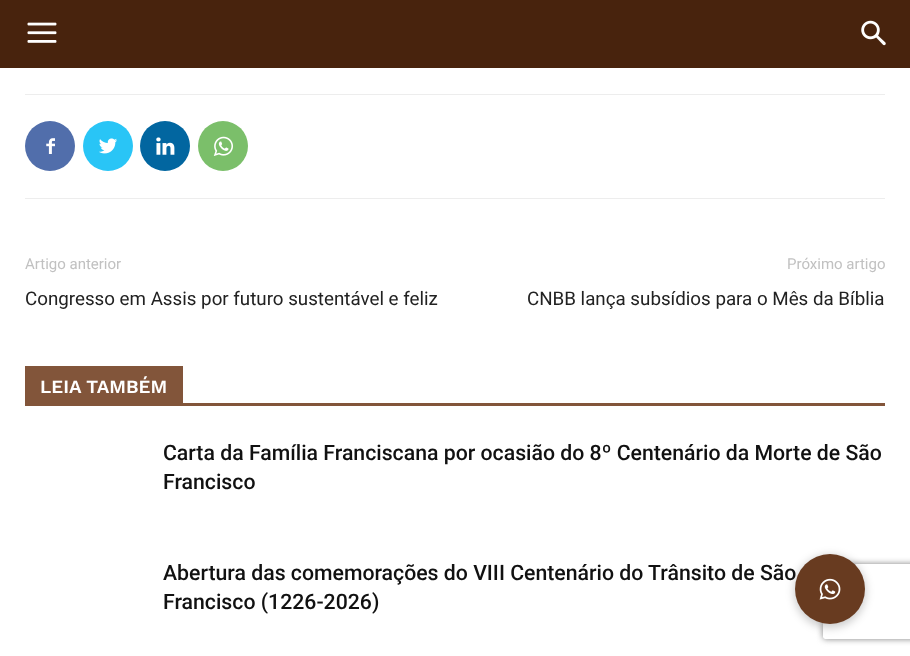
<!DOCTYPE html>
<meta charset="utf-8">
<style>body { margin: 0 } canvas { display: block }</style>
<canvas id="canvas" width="910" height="656"></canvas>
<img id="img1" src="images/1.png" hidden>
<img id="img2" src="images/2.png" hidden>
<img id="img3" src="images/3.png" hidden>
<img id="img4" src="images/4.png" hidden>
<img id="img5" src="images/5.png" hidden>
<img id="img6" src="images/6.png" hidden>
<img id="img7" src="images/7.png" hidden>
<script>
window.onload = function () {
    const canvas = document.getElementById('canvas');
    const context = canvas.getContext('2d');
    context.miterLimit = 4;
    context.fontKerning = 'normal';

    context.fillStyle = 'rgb(255, 255, 255)';
    context.fillRect(0, 0, 910, 656);
    context.fillStyle = 'rgb(72, 35, 13)';
    context.fillRect(0, 0, 910, 68);
    context.drawImage(document.getElementById('img1'), 27, 22, 30, 21);
    context.drawImage(document.getElementById('img2'), 861, 20, 25, 26);
    context.fillStyle = 'rgb(237, 237, 237)';
    context.fillRect(25, 94, 860, 1);
    context.fillRect(25, 198, 860, 1);
    context.fillStyle = 'rgb(81, 110, 171)';
    context.beginPath();
    context.arc(50, 146, 25, 0, 2 * Math.PI);
    context.fill();
    context.drawImage(document.getElementById('img3'), 46, 138, 9, 16);
    context.fillStyle = 'rgb(41, 197, 246)';
    context.beginPath();
    context.arc(108, 146, 25, 0, 2 * Math.PI);
    context.fill();
    context.drawImage(document.getElementById('img4'), 99, 138, 18, 16);
    context.fillStyle = 'rgb(2, 102, 160)';
    context.beginPath();
    context.arc(165, 146, 25, 0, 2 * Math.PI);
    context.fill();
    context.drawImage(document.getElementById('img5'), 156, 137, 19, 18);
    context.fillStyle = 'rgb(123, 191, 106)';
    context.beginPath();
    context.arc(223, 146, 25, 0, 2 * Math.PI);
    context.fill();
    context.drawImage(document.getElementById('img6'), 213, 136, 20, 20);
    context.fillStyle = 'rgb(130, 85, 58)';
    context.fillRect(25, 403, 860, 3);
    context.fillRect(25, 366, 158, 37);
    context.fillStyle = 'rgba(0, 0, 0, 0.2)';
    context.filter = 'blur(4px)';
    context.beginPath();
    context.roundRect(794, 555, 72, 73, 36);
    context.fill();
    context.filter = 'none';
    context.save();
    context.beginPath();
    context.moveTo(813, 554);
    context.lineTo(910, 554);
    context.lineTo(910, 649);
    context.lineTo(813, 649);
    context.closePath();
    context.moveTo(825.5, 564);
    context.lineTo(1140.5, 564);
    context.bezierCurveTo(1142, 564, 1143, 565, 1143, 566.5);
    context.lineTo(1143, 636.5);
    context.bezierCurveTo(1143, 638, 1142, 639, 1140.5, 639);
    context.lineTo(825.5, 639);
    context.bezierCurveTo(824, 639, 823, 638, 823, 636.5);
    context.lineTo(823, 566.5);
    context.bezierCurveTo(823, 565, 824, 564, 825.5, 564);
    context.closePath();
    context.clip('evenodd');
    context.fillStyle = 'rgb(128, 128, 128)';
    context.filter = 'blur(3px)';
    context.beginPath();
    context.roundRect(823, 564, 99, 75, 2.5);
    context.fill();
    context.filter = 'none';
    context.restore();
    context.fillStyle = 'rgb(104, 59, 32)';
    context.beginPath();
    context.arc(830, 589, 35, 0, 2 * Math.PI);
    context.fill();
    context.drawImage(document.getElementById('img7'), 819, 578, 22, 22);
    context.font = '15px Roboto';
    context.fillStyle = 'rgb(193, 193, 193)';
    context.fillText('Artigo anterior', 25, 269);
    context.font = '18.75px Roboto';
    context.fillStyle = 'rgb(34, 34, 34)';
    context.fillText('Congresso em Assis por futuro sustentável e feliz', 25, 305);
    context.font = '15px Roboto';
    context.fillStyle = 'rgb(193, 193, 193)';
    context.fillText('Próximo artigo', 787, 269);
    context.font = '18.75px Roboto';
    context.fillStyle = 'rgb(34, 34, 34)';
    context.fillText('CNBB lança subsídios para o Mês da Bíblia', 527, 305);
    context.font = '600 18.75px Work Sans';
    context.fillStyle = 'rgb(255, 255, 255)';
    context.fillText('LEIA TAMBÉM', 40, 393);
    context.font = '500 21.25px Roboto';
    context.fillStyle = 'rgb(17, 17, 17)';
    context.fillText('Carta da Família Franciscana por ocasião do 8º Centenário da Morte de São', 163, 460);
    context.fillText('Francisco', 163, 489);
    context.fillText('Abertura das comemorações do VIII Centenário do Trânsito de São', 163, 580);
    context.fillText('Francisco (1226-2026)', 163, 609);
};
</script>
